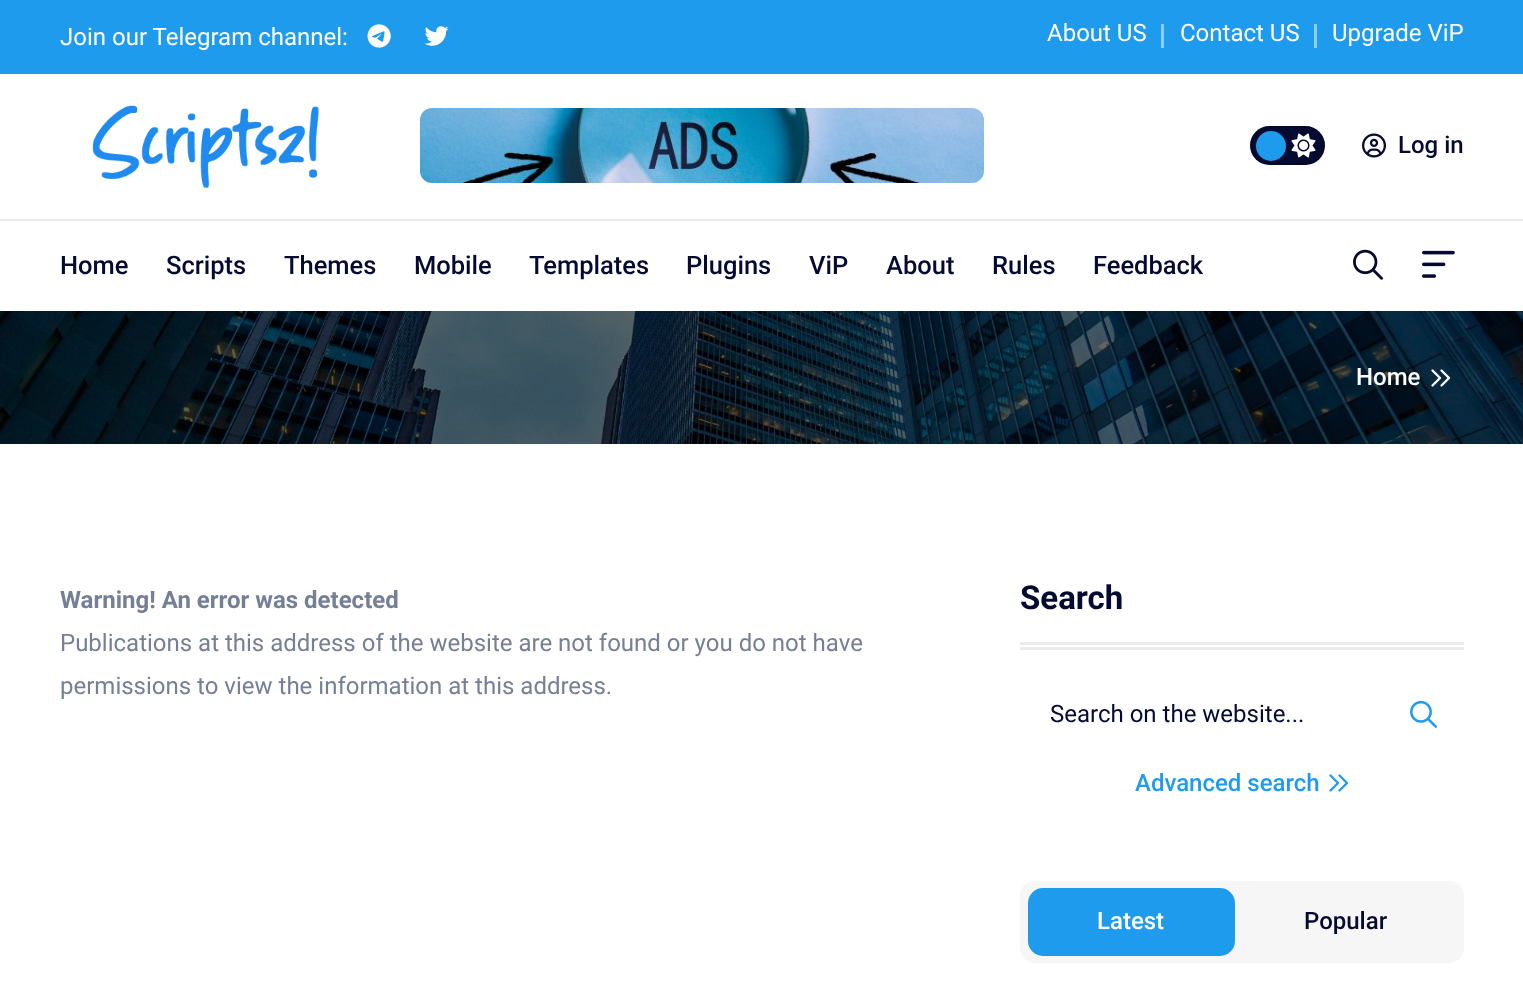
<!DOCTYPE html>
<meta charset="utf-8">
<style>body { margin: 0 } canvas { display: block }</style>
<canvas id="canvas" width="1523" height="985"></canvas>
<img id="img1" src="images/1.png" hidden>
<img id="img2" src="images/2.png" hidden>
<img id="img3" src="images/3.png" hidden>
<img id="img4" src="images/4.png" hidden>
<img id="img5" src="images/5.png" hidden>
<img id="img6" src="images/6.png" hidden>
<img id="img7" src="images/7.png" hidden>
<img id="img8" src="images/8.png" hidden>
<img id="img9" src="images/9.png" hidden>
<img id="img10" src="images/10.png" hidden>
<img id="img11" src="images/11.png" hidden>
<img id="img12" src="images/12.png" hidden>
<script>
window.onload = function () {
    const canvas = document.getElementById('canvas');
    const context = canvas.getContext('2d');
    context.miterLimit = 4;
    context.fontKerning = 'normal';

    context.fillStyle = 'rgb(255, 255, 255)';
    context.fillRect(0, 0, 1523, 985);
    context.fillStyle = 'rgb(31, 155, 238)';
    context.fillRect(0, 0, 1523, 74);
    context.drawImage(document.getElementById('img1'), 367, 24, 24, 24);
    context.drawImage(document.getElementById('img2'), 424, 26, 25, 20);
    context.fillStyle = 'rgb(143, 205, 247)';
    context.fillRect(1161, 24, 3, 24);
    context.fillRect(1314, 24, 3, 24);
    context.drawImage(document.getElementById('img3'), 92, 105, 227, 84);
    context.drawImage(document.getElementById('img4'), 420, 108, 564, 75);
    context.fillStyle = 'rgb(5, 10, 48)';
    context.beginPath();
    context.roundRect(1250, 126, 75, 39, 19.5);
    context.fill();
    context.beginPath();
    context.roundRect(1251, 127, 73, 37, 18.5);
    context.strokeStyle = 'rgba(0, 0, 0, 0.08)';
    context.lineWidth = 2;
    context.stroke();
    context.fillStyle = 'rgb(31, 155, 238)';
    context.beginPath();
    context.arc(1271, 146, 15, 0, 2 * Math.PI);
    context.fill();
    context.drawImage(document.getElementById('img5'), 1291, 133, 25, 25);
    context.drawImage(document.getElementById('img6'), 1362, 133, 24, 25);
    context.fillStyle = 'rgb(235, 235, 235)';
    context.fillRect(0, 219, 1523, 2);
    context.drawImage(document.getElementById('img7'), 1353, 249, 30, 31);
    context.drawImage(document.getElementById('img8'), 1422, 250, 33, 28);
    context.drawImage(document.getElementById('img9'), 0, 311, 1523, 133);
    context.drawImage(document.getElementById('img10'), 1431, 369, 20, 18);
    context.fillRect(1020, 642, 444, 3);
    context.fillRect(1020, 647, 444, 3);
    context.drawImage(document.getElementById('img11'), 1410, 700, 27, 28);
    context.drawImage(document.getElementById('img12'), 1329, 774, 20, 18);
    context.fillStyle = 'rgb(246, 246, 246)';
    context.beginPath();
    context.roundRect(1020, 881, 444, 82, 15);
    context.fill();
    context.fillStyle = 'rgb(31, 155, 238)';
    context.beginPath();
    context.roundRect(1028, 888, 207, 68, 15);
    context.fill();
    context.font = '24px Roboto';
    context.fillStyle = 'rgb(255, 255, 255)';
    context.fillText('Join our Telegram channel:', 60, 45);
    context.fillText('About US', 1047, 41);
    context.fillText('Contact US', 1180, 41);
    context.fillText('Upgrade ViP', 1332, 41);
    context.font = '500 24px Roboto';
    context.fillStyle = 'rgb(5, 10, 48)';
    context.fillText('Log in', 1398, 153);
    context.font = '500 25.5px Roboto';
    context.fillText('Home', 60, 274);
    context.fillText('Scripts', 166, 274);
    context.fillText('Themes', 284, 274);
    context.fillText('Mobile', 414, 274);
    context.fillText('Templates', 529, 274);
    context.fillText('Plugins', 686, 274);
    context.fillText('ViP', 809, 274);
    context.fillText('About', 886, 274);
    context.fillText('Rules', 992, 274);
    context.fillText('Feedback', 1093, 274);
    context.font = '500 24px Roboto';
    context.fillStyle = 'rgb(255, 255, 255)';
    context.fillText('Home', 1356, 385);
    context.font = 'bold 24px Roboto';
    context.fillStyle = 'rgb(117, 127, 149)';
    context.fillText('Warning! An error was detected', 60, 608);
    context.font = '24px Roboto';
    context.fillText('Publications at this address of the website are not found or you do not have', 60, 651);
    context.fillText('permissions to view the information at this address.', 60, 694);
    context.font = 'bold 33px Roboto';
    context.fillStyle = 'rgb(5, 10, 48)';
    context.fillText('Search', 1020, 609);
    context.font = '24px Roboto';
    context.fillText('Search on the website...', 1050, 722);
    context.font = '500 24px Roboto';
    context.fillStyle = 'rgb(31, 155, 238)';
    context.fillText('Advanced search', 1135, 791);
    context.fillStyle = 'rgb(255, 255, 255)';
    context.fillText('Latest', 1097, 929);
    context.fillStyle = 'rgb(5, 10, 48)';
    context.fillText('Popular', 1304, 929);
};
</script>
